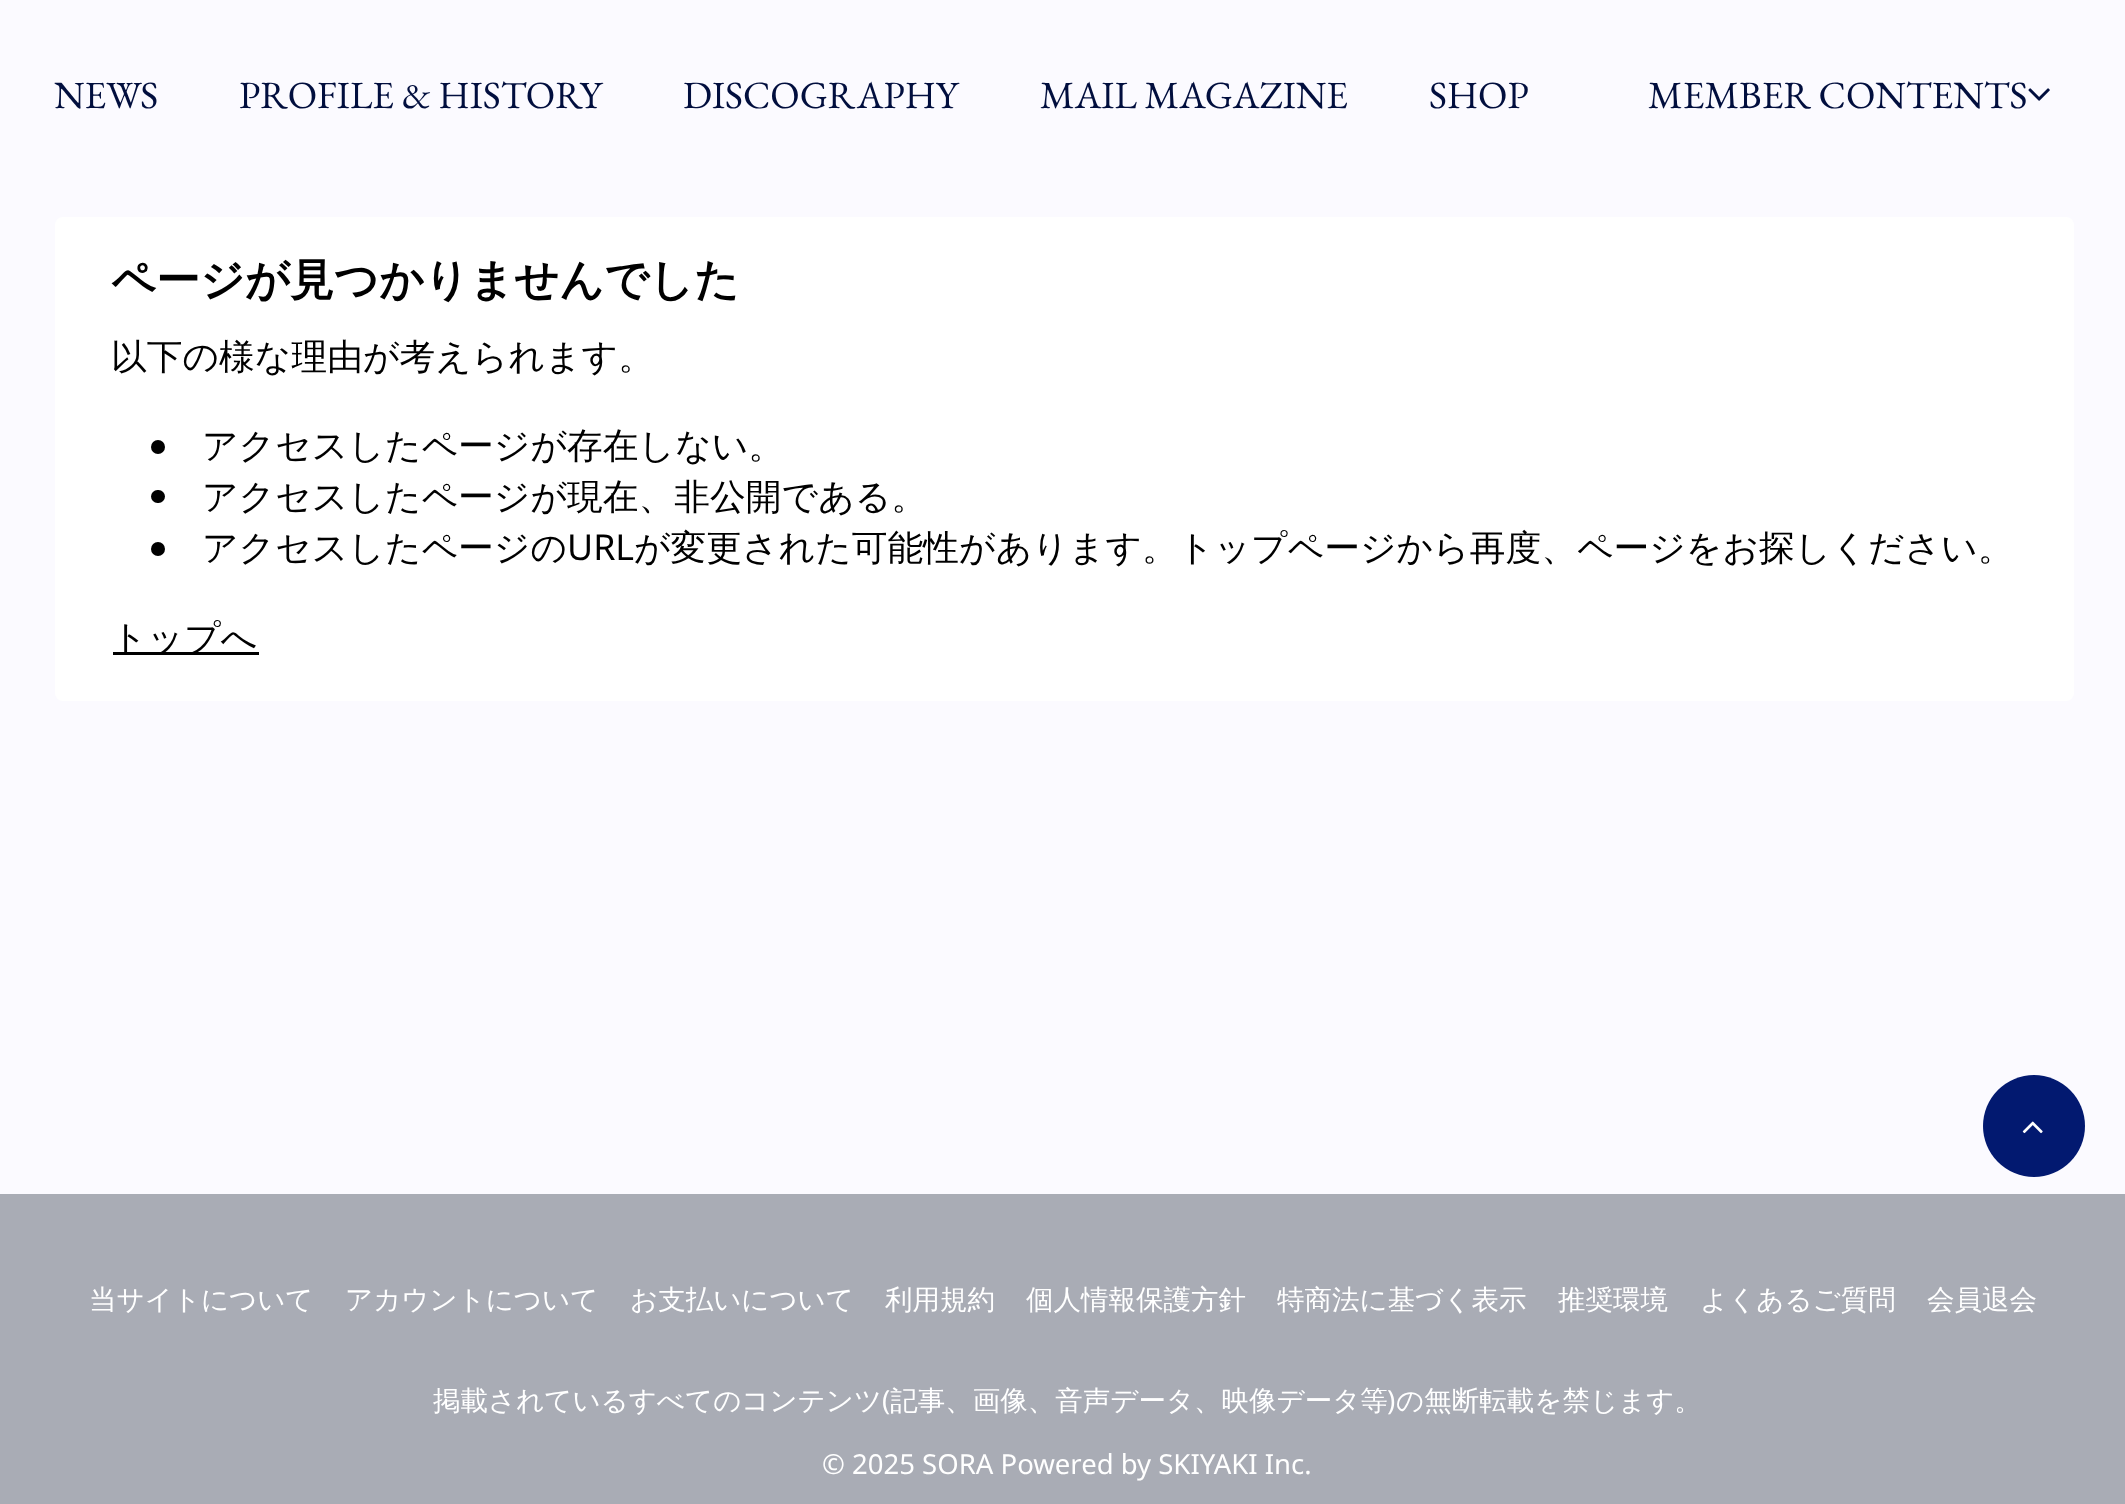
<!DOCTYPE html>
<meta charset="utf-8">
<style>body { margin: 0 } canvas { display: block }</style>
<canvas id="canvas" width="2125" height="1504"></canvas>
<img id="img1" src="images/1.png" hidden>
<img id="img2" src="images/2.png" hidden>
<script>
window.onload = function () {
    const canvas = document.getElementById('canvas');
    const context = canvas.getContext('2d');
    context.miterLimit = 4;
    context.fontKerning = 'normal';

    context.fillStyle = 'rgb(251, 250, 255)';
    context.fillRect(0, 0, 2125, 1504);
    context.drawImage(document.getElementById('img1'), 2028, 88, 22, 13);
    context.fillStyle = 'rgb(255, 255, 255)';
    context.beginPath();
    context.roundRect(55, 217, 2019, 484, 8);
    context.fill();
    context.fillStyle = 'rgb(0, 0, 0)';
    context.beginPath();
    context.arc(158, 447, 7, 0, 2 * Math.PI);
    context.fill();
    context.beginPath();
    context.roundRect(151, 490, 14, 13, 6.5);
    context.fill();
    context.beginPath();
    context.arc(158, 549, 7, 0, 2 * Math.PI);
    context.fill();
    context.fillRect(113, 652, 146, 3);
    context.fillStyle = 'rgb(169, 172, 181)';
    context.fillRect(0, 1194, 2125, 310);
    context.fillStyle = 'rgb(2, 25, 112)';
    context.beginPath();
    context.arc(2034, 1126, 51, 0, 2 * Math.PI);
    context.fill();
    context.drawImage(document.getElementById('img2'), 2022, 1121, 21, 13);
    context.font = '38.5px EB Garamond';
    context.fillStyle = 'rgb(1, 14, 62)';
    context.fillText('NEWS', 54, 108);
    context.fillText('PROFILE & HISTORY', 239, 108);
    context.fillText('DISCOGRAPHY', 683, 108);
    context.fillText('MAIL MAGAZINE', 1040, 108);
    context.fillText('SHOP', 1429, 108);
    context.fillText('MEMBER CONTENTS', 1648, 108);
    context.font = 'bold 44px WenQuanYi Zen Hei';
    context.fillStyle = 'rgb(0, 0, 0)';
    context.fillText('ページが見つかりませんでした', 111, 295);
    context.font = '500 35.75px WenQuanYi Zen Hei';
    context.fillText('以下の様な理由が考えられます。', 111, 369);
    context.fillText('アクセスしたページが存在しない。', 202, 458);
    context.fillText('アクセスしたページが現在、非公開である。', 202, 509);
    context.fillText('アクセスしたページの', 202, 560);
    context.font = '35.75px Noto Sans';
    context.fillText('URL', 567, 560);
    context.font = '500 35.75px WenQuanYi Zen Hei';
    context.fillText('が変更された可能性があります。トップページから再度、ページをお探しください。', 634, 560);
    context.fillText('トップへ', 111, 650);
    context.font = '500 27.5px WenQuanYi Zen Hei';
    context.fillStyle = 'rgb(255, 255, 255)';
    context.fillText('当サイトについて', 89, 1309);
    context.fillText('アカウントについて', 345, 1309);
    context.fillText('お支払いについて', 630, 1309);
    context.fillText('利用規約', 885, 1309);
    context.fillText('個人情報保護方針', 1026, 1309);
    context.fillText('特商法に基づく表示', 1277, 1309);
    context.fillText('推奨環境', 1558, 1309);
    context.fillText('よくあるご質問', 1700, 1309);
    context.fillText('会員退会', 1927, 1309);
    context.fillText('掲載されているすべてのコンテンツ 記事、画像、音声データ、映像データ等 の無断転載を禁じます。', 433, 1410);
    context.font = '27.5px Noto Sans';
    context.fillText('(', 882, 1410);
    context.fillText(')', 1387, 1410);
    context.fillText('© 2025 SORA Powered by SKIYAKI Inc.', 822, 1474);
};
</script>
